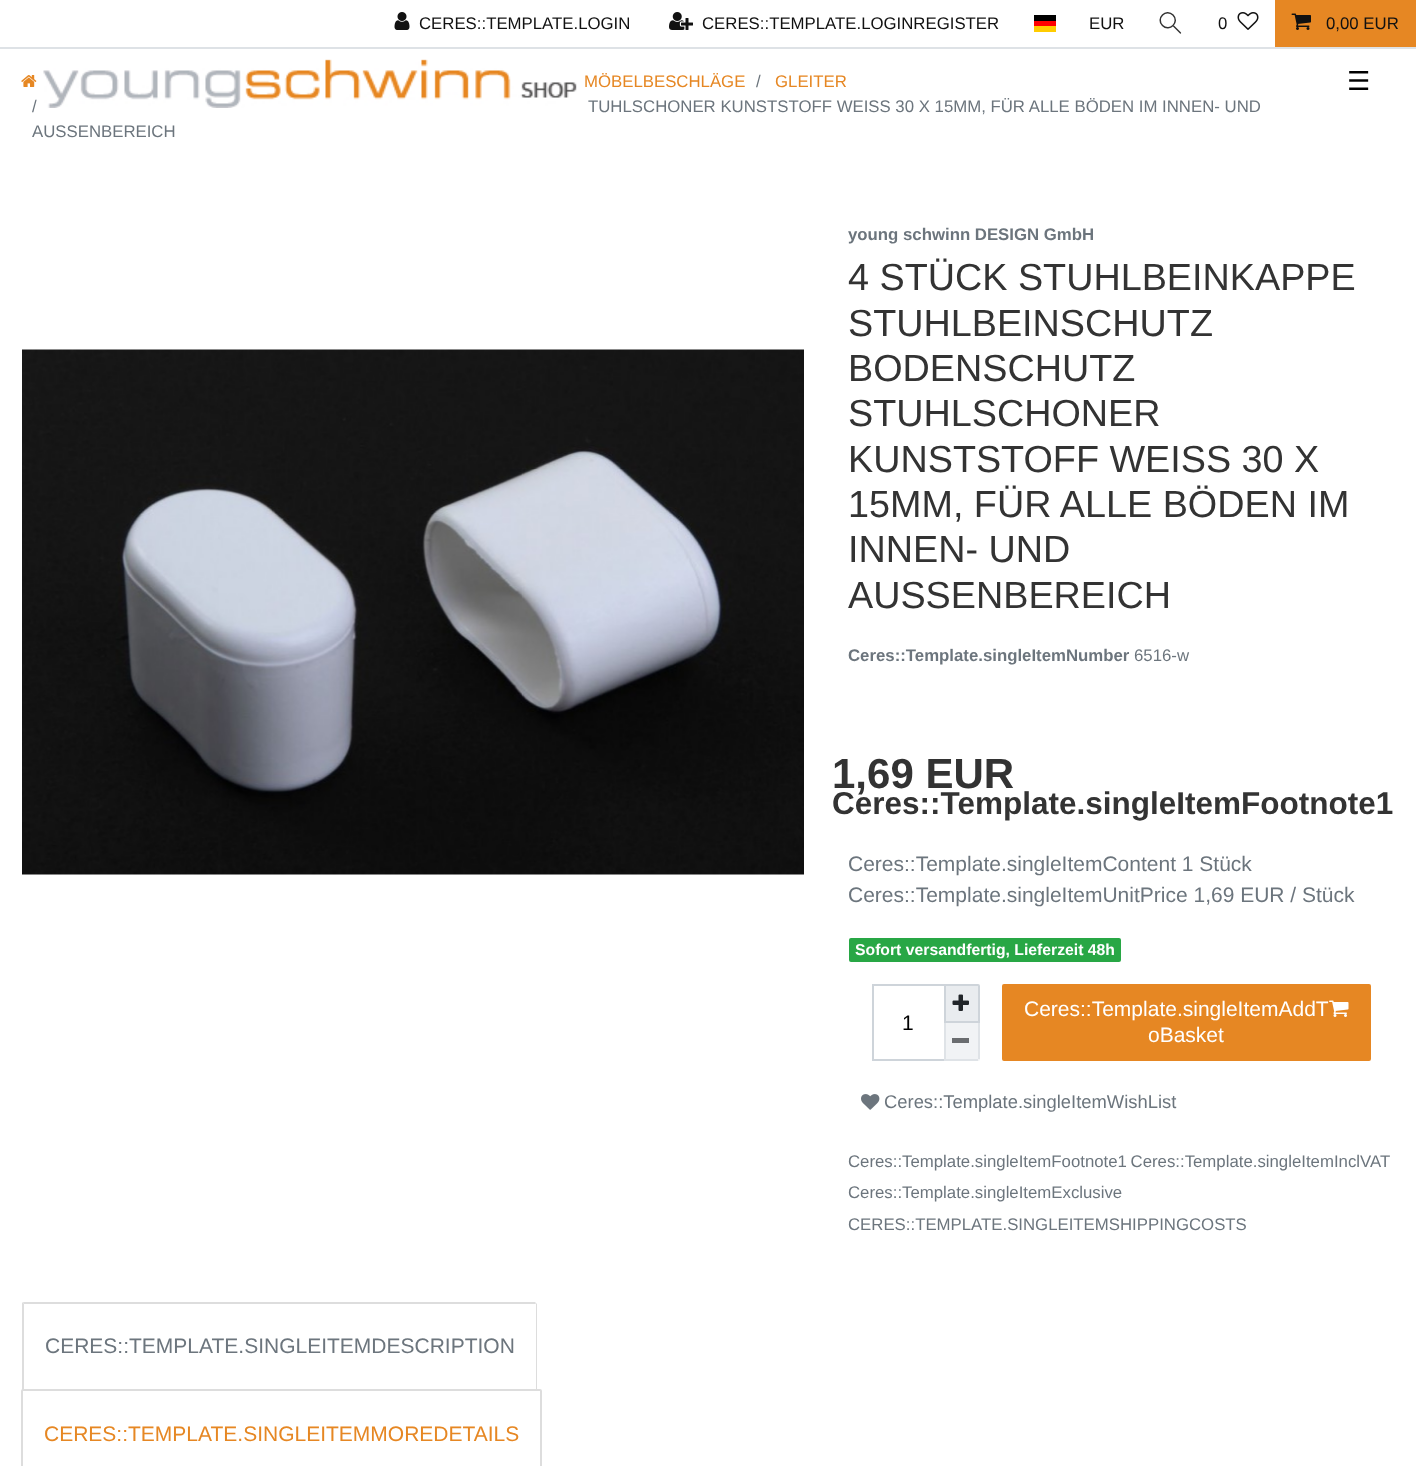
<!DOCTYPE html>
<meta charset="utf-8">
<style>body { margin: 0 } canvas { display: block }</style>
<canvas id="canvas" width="1416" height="1466"></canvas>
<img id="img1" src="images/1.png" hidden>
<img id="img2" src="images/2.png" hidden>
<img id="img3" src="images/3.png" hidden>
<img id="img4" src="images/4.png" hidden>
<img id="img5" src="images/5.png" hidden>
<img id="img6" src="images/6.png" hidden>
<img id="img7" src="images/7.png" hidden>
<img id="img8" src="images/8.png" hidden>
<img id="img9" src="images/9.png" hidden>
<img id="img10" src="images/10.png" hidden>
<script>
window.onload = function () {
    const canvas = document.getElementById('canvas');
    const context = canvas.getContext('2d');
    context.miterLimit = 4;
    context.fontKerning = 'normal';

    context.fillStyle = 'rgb(255, 255, 255)';
    context.fillRect(0, 0, 1416, 1466);
    context.drawImage(document.getElementById('img1'), 394, 12, 16, 18);
    context.drawImage(document.getElementById('img2'), 669, 12, 24, 18);
    context.fillStyle = 'rgb(255, 204, 0)';
    context.fillRect(1034, 26, 22, 6);
    context.fillStyle = 'rgb(0, 0, 0)';
    context.fillRect(1034, 15, 22, 6);
    context.fillStyle = 'rgb(255, 0, 0)';
    context.fillRect(1034, 21, 22, 5);
    context.fillStyle = 'rgb(51, 51, 51)';
    context.beginPath();
    context.moveTo(1180, 33.5);
    context.lineTo(1165, 18.5);
    context.lineTo(1165, 18);
    context.bezierCurveTo(1165, 17.5, 1165.5, 17.5, 1166, 17.5);
    context.lineTo(1181, 32.5);
    context.bezierCurveTo(1181.5, 33.5, 1180.5, 34, 1180, 33.5);
    context.closePath();
    context.fill();
    context.fillStyle = 'rgb(255, 255, 255)';
    context.beginPath();
    context.moveTo(1162, 26);
    context.bezierCurveTo(1154.5, 18.5, 1166, 7, 1173.5, 14.5);
    context.bezierCurveTo(1181, 22, 1169.5, 34, 1162, 26);
    context.closePath();
    context.fill();
    context.beginPath();
    context.moveTo(1162.5, 25.5);
    context.bezierCurveTo(1155.5, 18.5, 1166, 8, 1173, 15);
    context.bezierCurveTo(1180, 22, 1169.5, 32.5, 1162.5, 25.5);
    context.closePath();
    context.strokeStyle = 'rgb(51, 51, 51)';
    context.lineWidth = 1.5;
    context.stroke();
    context.drawImage(document.getElementById('img3'), 1237, 12, 22, 18);
    context.fillStyle = 'rgb(230, 135, 35)';
    context.fillRect(1275, 0, 141, 47);
    context.drawImage(document.getElementById('img4'), 1291, 13, 20, 17);
    context.drawImage(document.getElementById('img5'), 21, 75, 16, 12);
    context.fillStyle = 'rgb(222, 226, 230)';
    context.fillRect(0, 47, 1416, 2);
    context.drawImage(document.getElementById('img6'), 43, 59, 536, 49);
    context.drawImage(document.getElementById('img7'), 22, 349, 782, 526);
    context.fillStyle = 'rgb(40, 167, 69)';
    context.beginPath();
    context.roundRect(849, 938, 272, 24, 2);
    context.fill();
    context.fillStyle = 'rgb(206, 212, 218)';
    context.fillRect(872, 984, 72, 2);
    context.fillRect(872, 1059, 72, 2);
    context.fillRect(872, 984, 2, 77);
    context.fillStyle = 'rgb(233, 236, 239)';
    context.beginPath();
    context.roundRect(945, 985, 34, 37, [0, 1, 0, 0]);
    context.fill();
    context.strokeStyle = 'rgb(206, 212, 218)';
    context.lineWidth = 2;
    context.stroke();
    context.drawImage(document.getElementById('img8'), 952, 994, 17, 17);
    context.fillStyle = 'rgb(241, 243, 245)';
    context.beginPath();
    context.roundRect(944, 1023, 36, 38, [0, 0, 2, 0]);
    context.fill();
    context.fillStyle = 'rgb(223, 227, 231)';
    context.fillRect(978, 1023, 2, 36);
    context.fillRect(944, 1059, 34, 2);
    context.fillRect(944, 1023, 2, 38);
    context.fillStyle = 'rgb(106, 109, 112)';
    context.fillRect(952, 1038, 17, 5);
    context.fillStyle = 'rgb(230, 135, 35)';
    context.beginPath();
    context.roundRect(1003, 985, 367, 75, 1);
    context.fill();
    context.strokeStyle = 'rgb(230, 135, 35)';
    context.stroke();
    context.drawImage(document.getElementById('img9'), 1329, 1000, 20, 17);
    context.drawImage(document.getElementById('img10'), 861, 1094, 19, 16);
    context.fillStyle = 'rgb(221, 221, 221)';
    context.beginPath();
    context.moveTo(25, 1302);
    context.lineTo(23, 1302);
    context.lineTo(24, 1304);
    context.lineTo(535, 1304);
    context.lineTo(536, 1303);
    context.lineTo(535, 1302);
    context.closePath();
    context.fill();
    context.beginPath();
    context.moveTo(537, 1390);
    context.lineTo(537, 1304);
    context.lineTo(536, 1303);
    context.lineTo(535, 1304);
    context.lineTo(536, 1304);
    context.lineTo(536, 1389);
    context.closePath();
    context.fill();
    context.beginPath();
    context.moveTo(22, 1303);
    context.lineTo(23, 1302);
    context.lineTo(24, 1304);
    context.lineTo(24, 1389);
    context.lineTo(23, 1390);
    context.lineTo(22, 1390);
    context.closePath();
    context.fill();
    context.beginPath();
    context.moveTo(23, 1390);
    context.lineTo(540, 1390);
    context.bezierCurveTo(540.5, 1390, 541, 1390.5, 541, 1391);
    context.lineTo(541, 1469);
    context.lineTo(22, 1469);
    context.lineTo(22, 1391);
    context.bezierCurveTo(22, 1390.5, 22.5, 1390, 23, 1390);
    context.closePath();
    context.strokeStyle = 'rgb(221, 221, 221)';
    context.stroke();
    context.font = '16.8px Liberation Sans';
    context.fillStyle = 'rgb(17, 17, 17)';
    context.fillText('CERES::TEMPLATE.LOGIN', 419, 29);
    context.fillText('CERES::TEMPLATE.LOGINREGISTER', 702, 29);
    context.fillText('EUR', 1089, 29);
    context.fillText('0', 1218, 29);
    context.fillText('0,00 EUR', 1326, 29);
    context.fillStyle = 'rgb(230, 135, 35)';
    context.fillText('MÖBELBESCHLÄGE', 584, 87);
    context.fillStyle = 'rgb(108, 117, 125)';
    context.fillText('/', 756, 87);
    context.fillStyle = 'rgb(230, 135, 35)';
    context.fillText('GLEITER', 775, 87);
    context.fillStyle = 'rgb(108, 117, 125)';
    context.fillText('/', 32, 112);
    context.fillText('TUHLSCHONER KUNSTSTOFF WEISS 30 X 15MM, FÜR ALLE BÖDEN IM INNEN- UND', 588, 112);
    context.fillText('AUSSENBEREICH', 32, 137);
    context.font = '26px DejaVu Sans';
    context.fillStyle = 'rgb(0, 0, 0)';
    context.fillText('☰', 1347, 90);
    context.font = 'bold 16.8px Liberation Sans';
    context.fillStyle = 'rgb(108, 117, 125)';
    context.fillText('young schwinn DESIGN GmbH', 848, 240);
    context.font = '37.75px Liberation Sans';
    context.fillStyle = 'rgb(51, 51, 51)';
    context.fillText('4 STÜCK STUHLBEINKAPPE', 848, 290);
    context.fillText('STUHLBEINSCHUTZ', 848, 336);
    context.fillText('BODENSCHUTZ', 848, 381);
    context.fillText('STUHLSCHONER', 848, 426);
    context.fillText('KUNSTSTOFF WEISS 30 X', 848, 472);
    context.fillText('15MM, FÜR ALLE BÖDEN IM', 848, 517);
    context.fillText('INNEN- UND', 848, 562);
    context.fillText('AUSSENBEREICH', 848, 608);
    context.font = 'bold 16.8px Liberation Sans';
    context.fillStyle = 'rgb(108, 117, 125)';
    context.fillText('Ceres::Template.singleItemNumber', 848, 661);
    context.font = '16.8px Liberation Sans';
    context.fillText('6516-w', 1134, 661);
    context.font = 'bold 42px Liberation Sans';
    context.fillStyle = 'rgb(51, 51, 51)';
    context.fillText('1,69 EUR', 832, 788);
    context.font = 'bold 31.5px Liberation Sans';
    context.fillText('Ceres::Template.singleItemFootnote1', 832, 814);
    context.font = '21px Liberation Sans';
    context.fillStyle = 'rgb(108, 117, 125)';
    context.fillText('Ceres::Template.singleItemContent 1 Stück', 848, 871);
    context.fillText('Ceres::Template.singleItemUnitPrice 1,69 EUR / Stück', 848, 902);
    context.font = 'bold 15.75px Liberation Sans';
    context.fillStyle = 'rgb(255, 255, 255)';
    context.fillText('Sofort versandfertig, Lieferzeit 48h', 855, 955);
    context.font = '21px Liberation Sans';
    context.fillStyle = 'rgb(0, 0, 0)';
    context.fillText('1', 902, 1030);
    context.fillStyle = 'rgb(255, 255, 255)';
    context.fillText('Ceres::Template.singleItemAddT', 1024, 1016);
    context.fillText('oBasket', 1148, 1042);
    context.font = '18.4px Liberation Sans';
    context.fillStyle = 'rgb(108, 117, 125)';
    context.fillText('Ceres::Template.singleItemWishList', 884, 1108);
    context.wordSpacing = '-1px';
    context.font = '16.8px Liberation Sans';
    context.fillText('Ceres::Template.singleItemFootnote1 Ceres::Template.singleItemInclVAT', 848, 1167);
    context.wordSpacing = '0px';
    context.fillText('Ceres::Template.singleItemExclusive', 848, 1198);
    context.fillText('CERES::TEMPLATE.SINGLEITEMSHIPPINGCOSTS', 848, 1230);
    context.font = '21px Liberation Sans';
    context.fillText('CERES::TEMPLATE.SINGLEITEMDESCRIPTION', 45, 1353);
    context.fillStyle = 'rgb(230, 135, 35)';
    context.fillText('CERES::TEMPLATE.SINGLEITEMMOREDETAILS', 44, 1441);
};
</script>
